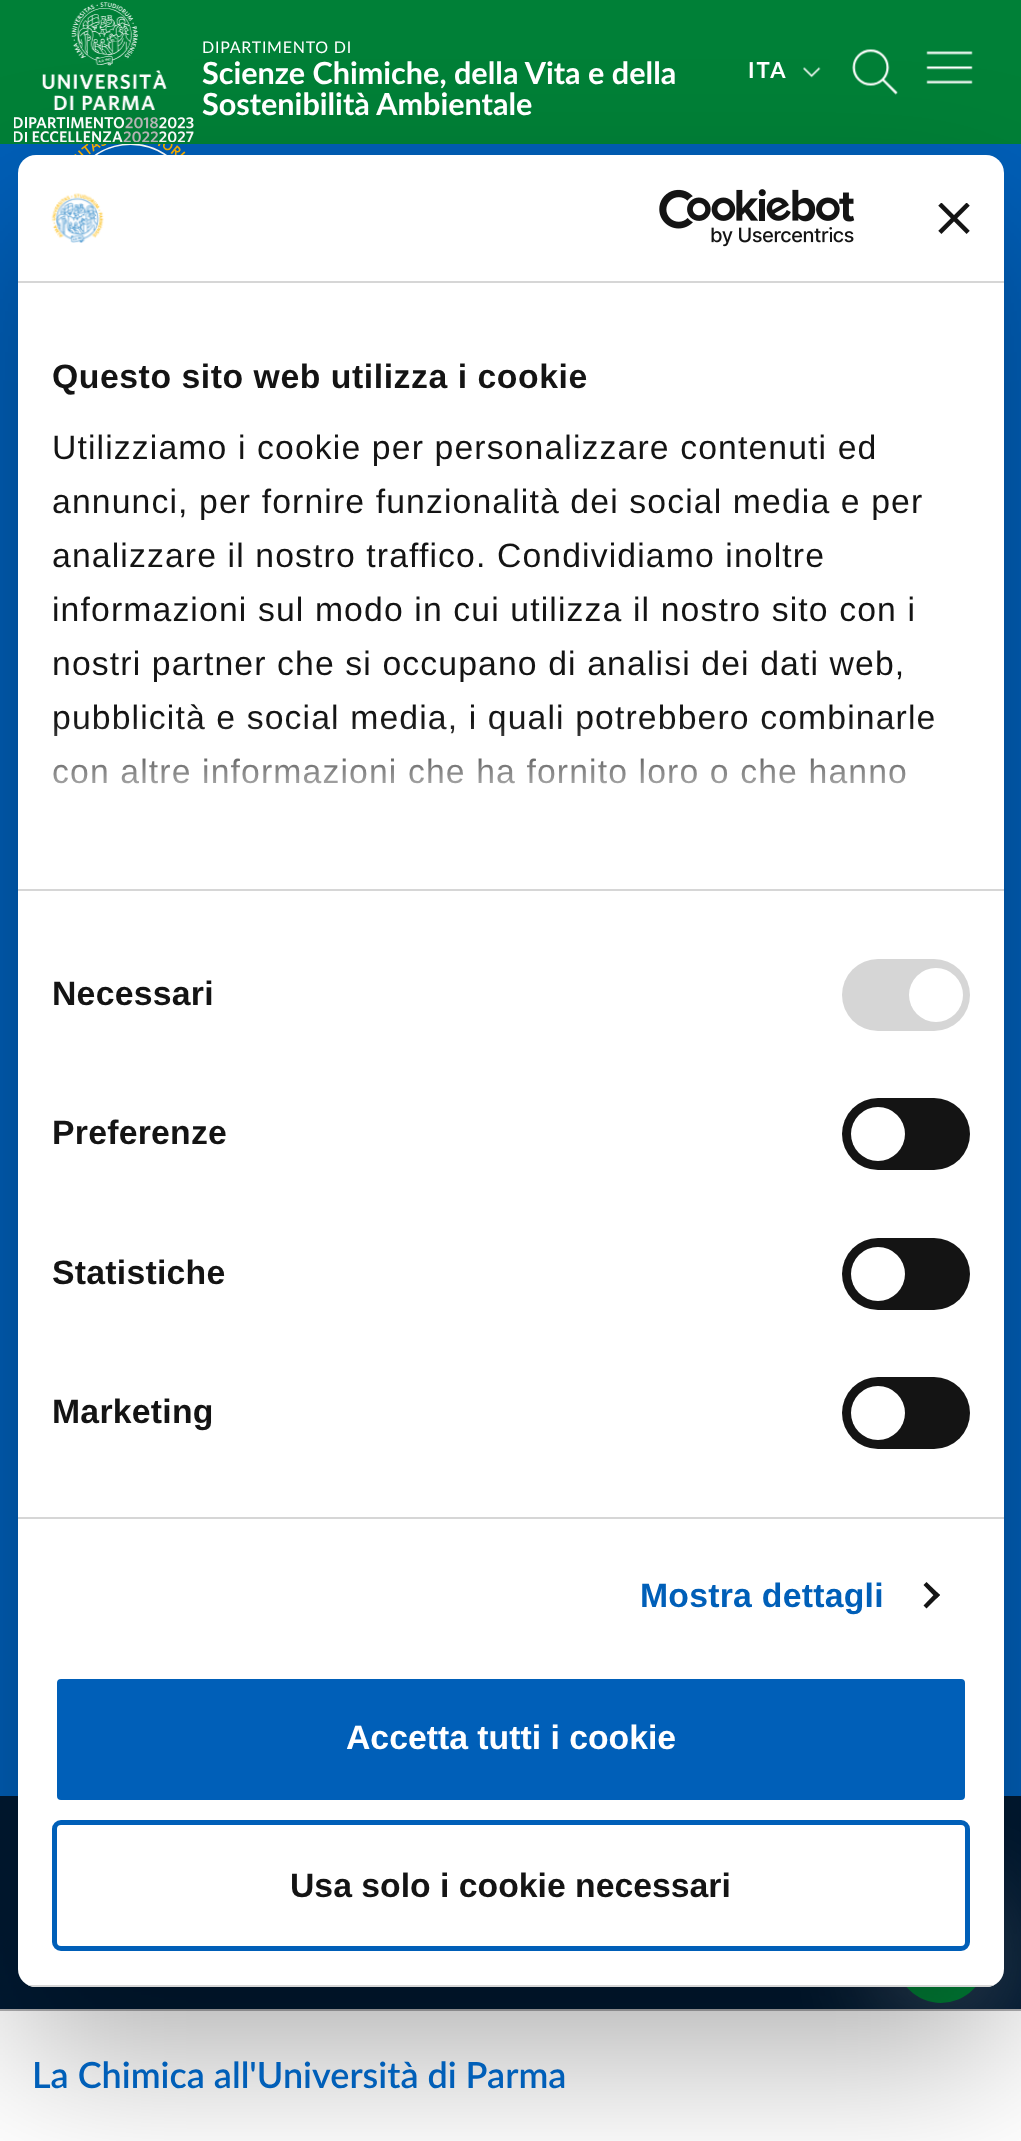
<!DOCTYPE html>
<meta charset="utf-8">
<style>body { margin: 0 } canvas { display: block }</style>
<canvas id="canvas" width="1021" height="2141"></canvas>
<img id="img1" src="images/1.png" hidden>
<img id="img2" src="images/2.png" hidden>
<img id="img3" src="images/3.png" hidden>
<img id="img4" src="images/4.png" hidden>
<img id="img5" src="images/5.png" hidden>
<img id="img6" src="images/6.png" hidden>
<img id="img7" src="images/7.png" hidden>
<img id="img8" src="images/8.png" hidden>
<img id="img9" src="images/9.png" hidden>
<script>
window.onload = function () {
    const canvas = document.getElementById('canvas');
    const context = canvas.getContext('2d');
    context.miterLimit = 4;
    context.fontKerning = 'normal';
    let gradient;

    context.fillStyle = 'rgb(0, 95, 184)';
    context.fillRect(0, 0, 1021, 2141);
    context.fillStyle = 'rgb(0, 128, 55)';
    context.fillRect(0, 0, 1021, 144);
    context.drawImage(document.getElementById('img1'), 42, 2, 125, 108);
    context.drawImage(document.getElementById('img2'), 14, 117, 180, 25);
    context.drawImage(document.getElementById('img3'), 803, 67, 18, 11);
    context.drawImage(document.getElementById('img4'), 852, 49, 46, 46);
    context.drawImage(document.getElementById('img5'), 926, 51, 47, 33);
    context.drawImage(document.getElementById('img6'), 74, 144, 112, 11);
    context.fillStyle = 'rgb(0, 26, 51)';
    context.fillRect(0, 1796, 1021, 213);
    context.fillStyle = 'rgba(255, 255, 255, 0.5)';
    context.filter = 'blur(56px)';
    context.beginPath();
    context.roundRect(896, 1913, 90, 90, 45);
    context.fill();
    context.filter = 'none';
    context.fillStyle = 'rgb(255, 255, 255)';
    context.fillRect(0, 2011, 1021, 130);
    context.fillStyle = 'rgb(177, 177, 179)';
    context.fillRect(0, 2009, 1021, 2);
    context.fillStyle = 'rgb(0, 128, 55)';
    context.beginPath();
    context.arc(941, 1958, 45, 0, 2 * Math.PI);
    context.fill();
    context.fillStyle = 'rgba(0, 0, 0, 0.3)';
    context.filter = 'blur(76.5px)';
    context.beginPath();
    context.roundRect(18, 227, 986, 1832, 18);
    context.fill();
    context.filter = 'none';
    context.fillStyle = 'rgb(255, 255, 255)';
    context.beginPath();
    context.roundRect(18, 155, 986, 1832, 18);
    context.fill();
    context.fillStyle = 'rgb(214, 214, 214)';
    context.fillRect(18, 281, 986, 2);
    context.drawImage(document.getElementById('img7'), 51, 193, 53, 50);
    context.drawImage(document.getElementById('img8'), 659, 189, 196, 58);
    context.drawImage(document.getElementById('img9'), 938, 203, 32, 31);
    context.fillRect(18, 889, 986, 2);
    context.fillRect(18, 1517, 986, 2);
    context.beginPath();
    context.roundRect(842, 959, 128, 72, 36);
    context.fill();
    context.fillStyle = 'rgb(255, 255, 255)';
    context.beginPath();
    context.arc(936, 995, 27, 0, 2 * Math.PI);
    context.fill();
    context.fillStyle = 'rgb(20, 20, 20)';
    context.beginPath();
    context.roundRect(842, 1098, 128, 72, 36);
    context.fill();
    context.fillStyle = 'rgb(255, 255, 255)';
    context.beginPath();
    context.arc(878, 1134, 27, 0, 2 * Math.PI);
    context.fill();
    context.fillStyle = 'rgb(20, 20, 20)';
    context.beginPath();
    context.roundRect(842, 1238, 128, 72, 36);
    context.fill();
    context.fillStyle = 'rgb(255, 255, 255)';
    context.beginPath();
    context.arc(878, 1274, 27, 0, 2 * Math.PI);
    context.fill();
    context.fillStyle = 'rgb(20, 20, 20)';
    context.beginPath();
    context.roundRect(842, 1377, 128, 72, 36);
    context.fill();
    context.fillStyle = 'rgb(255, 255, 255)';
    context.beginPath();
    context.arc(878, 1413, 27, 0, 2 * Math.PI);
    context.fill();
    context.fillStyle = 'rgb(20, 20, 20)';
    context.beginPath();
    context.moveTo(926.5, 1582);
    context.lineTo(940, 1595);
    context.lineTo(936.5, 1598.5);
    context.lineTo(923.5, 1585);
    context.closePath();
    context.fill();
    context.beginPath();
    context.moveTo(936.5, 1592);
    context.lineTo(940, 1595);
    context.lineTo(926.5, 1608.5);
    context.lineTo(923.5, 1605.5);
    context.closePath();
    context.fill();
    context.save();
    context.beginPath();
    context.roundRect(18, 155, 986, 1832, 18);
    context.clip();
    context.fillStyle = 'rgb(214, 214, 214)';
    context.fillRect(28, 1985, 966, 2);
    context.restore();
    context.fillStyle = 'rgb(0, 95, 184)';
    context.beginPath();
    context.roundRect(54.5, 1676.5, 913, 126, 6.5);
    context.fill();
    context.strokeStyle = 'rgb(255, 255, 255)';
    context.lineWidth = 5;
    context.stroke();
    context.beginPath();
    context.roundRect(54.5, 1822.5, 913, 126, 6.5);
    context.strokeStyle = 'rgb(0, 95, 184)';
    context.stroke();
    context.letterSpacing = '0.75px';
    context.font = '16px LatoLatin';
    context.fillStyle = 'rgb(255, 255, 255)';
    context.fillText('DIPARTIMENTO DI', 202, 53);
    context.letterSpacing = '0px';
    context.font = 'bold 30.6px LatoLatin';
    context.fillText('Scienze Chimiche, della Vita e della', 202, 84);
    context.fillText('Sostenibilità Ambientale', 202, 115);
    context.letterSpacing = '2px';
    context.font = 'bold 22px LatoLatin';
    context.fillText('ITA', 748, 78);
    context.letterSpacing = '0px';
    context.font = '600 36px LatoLatin';
    context.fillStyle = 'rgb(0, 95, 184)';
    context.fillText('La Chimica all\'Università di Parma', 32, 2088);
    context.letterSpacing = '0.55px';
    context.font = 'bold 33.75px Liberation Sans';
    context.fillStyle = 'rgb(20, 20, 20)';
    context.fillText('Questo sito web utilizza i cookie', 52, 388);
    context.letterSpacing = '1.12px';
    context.font = '33.75px Liberation Sans';
    context.fillText('Utilizziamo i cookie per personalizzare contenuti ed', 52, 459);
    context.fillText('annunci, per fornire funzionalità dei social media e per', 52, 513);
    context.fillText('analizzare il nostro traffico. Condividiamo inoltre', 52, 567);
    context.fillText('informazioni sul modo in cui utilizza il nostro sito con i', 52, 621);
    context.fillText('nostri partner che si occupano di analisi dei dati web,', 52, 675);
    context.fillText('pubblicità e social media, i quali potrebbero combinarle', 52, 729);
    context.fillText('con altre informazioni che ha fornito loro o che hanno', 52, 783);
    gradient = context.createLinearGradient(496, 889, 496, 720);
    gradient.addColorStop(0, 'rgb(255, 255, 255)');
    gradient.addColorStop(0.5, 'rgba(255, 255, 255, 0.8)');
    gradient.addColorStop(1, 'rgba(255, 255, 255, 0)');
    context.fillStyle = gradient;
    context.fillRect(53, 722, 880, 62);
    context.letterSpacing = '0.25px';
    context.font = 'bold 33.75px Liberation Sans';
    context.fillStyle = 'rgb(20, 20, 20)';
    context.fillText('Necessari', 52, 1005);
    context.fillText('Preferenze', 52, 1144);
    context.fillText('Statistiche', 52, 1284);
    context.fillText('Marketing', 52, 1423);
    context.fillStyle = 'rgb(0, 95, 184)';
    context.fillText('Mostra dettagli', 640, 1607);
    context.letterSpacing = '0px';
    context.fillStyle = 'rgb(255, 255, 255)';
    context.fillText('Accetta tutti i cookie', 346, 1749);
    context.fillStyle = 'rgb(20, 20, 20)';
    context.fillText('Usa solo i cookie necessari', 290, 1897);
};
</script>
